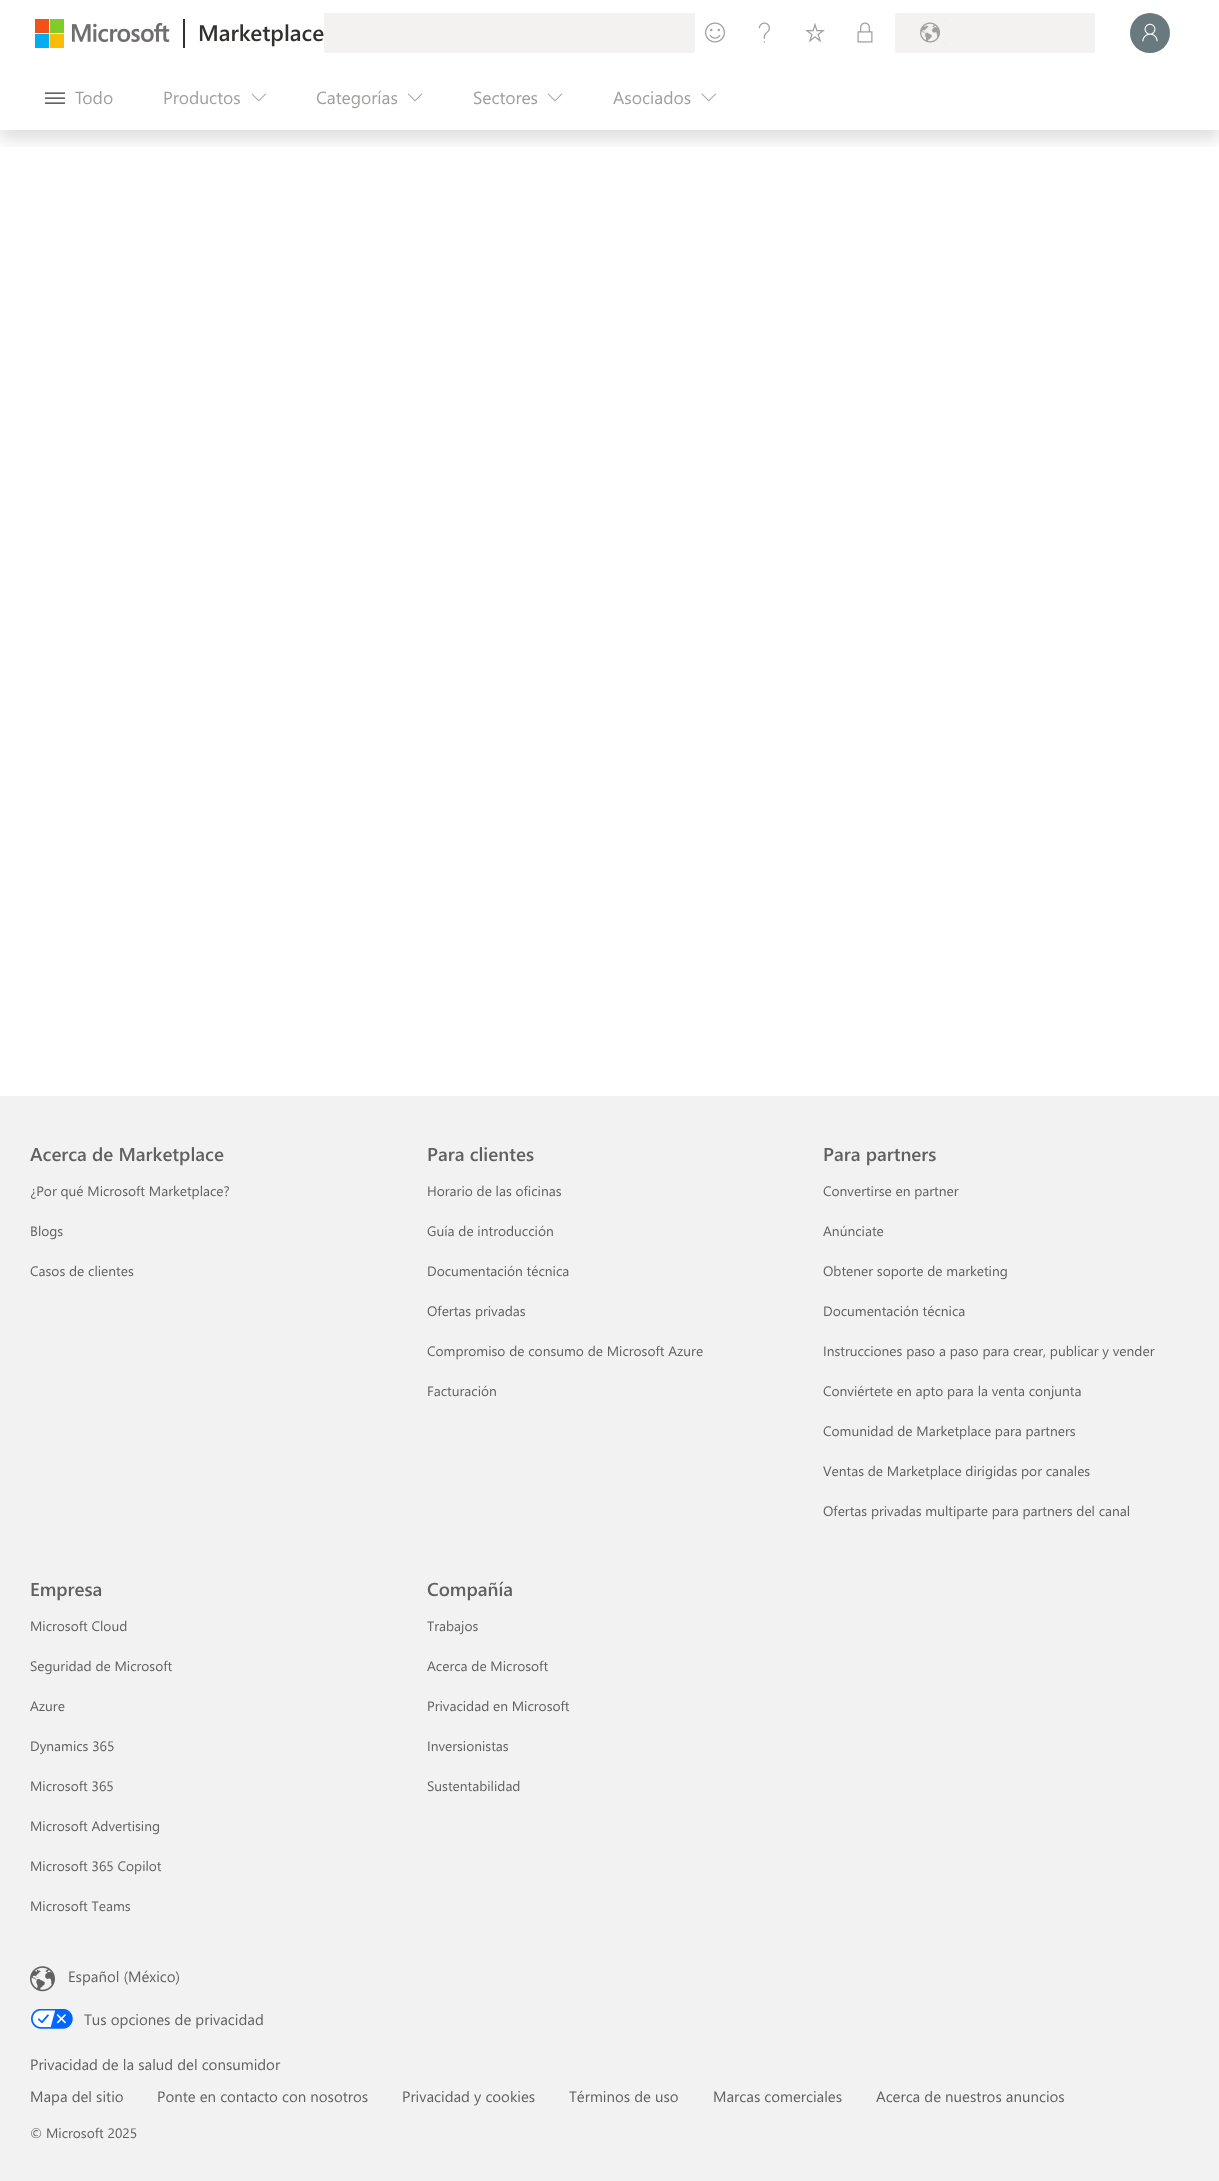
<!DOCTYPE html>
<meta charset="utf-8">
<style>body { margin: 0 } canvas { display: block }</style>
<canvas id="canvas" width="1219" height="2181"></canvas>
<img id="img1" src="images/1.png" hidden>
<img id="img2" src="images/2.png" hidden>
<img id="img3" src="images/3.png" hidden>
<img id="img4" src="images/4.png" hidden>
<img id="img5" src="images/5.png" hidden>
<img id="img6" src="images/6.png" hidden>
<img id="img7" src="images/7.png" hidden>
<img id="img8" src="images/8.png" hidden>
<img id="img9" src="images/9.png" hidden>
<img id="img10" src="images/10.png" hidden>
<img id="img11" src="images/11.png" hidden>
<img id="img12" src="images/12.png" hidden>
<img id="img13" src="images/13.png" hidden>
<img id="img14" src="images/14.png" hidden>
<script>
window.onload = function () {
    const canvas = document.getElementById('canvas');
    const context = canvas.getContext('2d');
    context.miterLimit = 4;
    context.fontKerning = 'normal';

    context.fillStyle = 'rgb(255, 255, 255)';
    context.fillRect(0, 0, 1219, 2181);
    context.save();
    context.beginPath();
    context.rect(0, 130, 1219, 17);
    context.clip();
    context.fillStyle = 'rgba(0, 0, 0, 0.12)';
    context.filter = 'blur(7.5px)';
    context.beginPath();
    context.rect(0, 10, 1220, 130);
    context.fill();
    context.filter = 'none';
    context.restore();
    context.drawImage(document.getElementById('img1'), 35, 19, 135, 29);
    context.fillStyle = 'rgb(50, 49, 48)';
    context.fillRect(183, 19, 2, 29);
    context.fillStyle = 'rgb(243, 242, 241)';
    context.fillRect(324, 13, 371, 40);
    context.fillStyle = 'rgb(247, 246, 245)';
    context.fillRect(324, 13, 1, 1);
    context.fillStyle = 'rgb(250, 249, 249)';
    context.fillRect(694, 13, 1, 1);
    context.drawImage(document.getElementById('img2'), 324, 51, 1, 2);
    context.drawImage(document.getElementById('img3'), 693, 51, 2, 2);
    context.drawImage(document.getElementById('img4'), 705, 22, 20, 21);
    context.drawImage(document.getElementById('img5'), 758, 22, 12, 21);
    context.drawImage(document.getElementById('img6'), 805, 23, 20, 20);
    context.drawImage(document.getElementById('img7'), 857, 22, 16, 21);
    context.fillStyle = 'rgb(243, 242, 241)';
    context.beginPath();
    context.roundRect(895, 13, 200, 40, 2.5);
    context.fill();
    context.drawImage(document.getElementById('img8'), 920, 22, 20, 21);
    context.fillStyle = 'rgb(254, 253, 253)';
    context.fillRect(950, 20, 1, 1);
    context.fillRect(1074, 20, 1, 1);
    context.fillRect(950, 44, 1, 1);
    context.fillRect(1074, 44, 1, 1);
    context.fillStyle = 'rgb(105, 121, 126)';
    context.beginPath();
    context.arc(1150, 33, 20, 0, 2 * Math.PI);
    context.fill();
    context.drawImage(document.getElementById('img9'), 1142, 23, 16, 19);
    context.drawImage(document.getElementById('img10'), 45, 92, 20, 12);
    context.drawImage(document.getElementById('img11'), 251, 93, 15, 9);
    context.drawImage(document.getElementById('img12'), 407, 93, 16, 9);
    context.drawImage(document.getElementById('img12'), 547, 93, 16, 9);
    context.drawImage(document.getElementById('img11'), 701, 93, 15, 9);
    context.fillStyle = 'rgb(242, 242, 242)';
    context.fillRect(0, 1096, 1219, 1085);
    context.drawImage(document.getElementById('img13'), 30, 1966, 25, 26);
    context.drawImage(document.getElementById('img14'), 31, 2009, 42, 20);
    context.font = '600 22.5px "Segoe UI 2"';
    context.fillStyle = 'rgb(50, 49, 48)';
    context.fillText('Marketplace', 198, 41);
    context.font = '17.5px "Segoe UI 2"';
    context.fillStyle = 'rgb(161, 159, 157)';
    context.fillText('Todo', 75, 104);
    context.fillText('Productos', 163, 104);
    context.fillText('Categorías', 316, 104);
    context.fillText('Sectores', 473, 104);
    context.fillText('Asociados', 613, 104);
    context.font = '600 18.75px Segoe UI';
    context.fillStyle = 'rgb(97, 97, 97)';
    context.fillText('Acerca de Marketplace', 30, 1161);
    context.font = '13.75px Segoe UI';
    context.fillText('¿Por qué Microsoft Marketplace?', 30, 1196);
    context.fillText('Blogs', 30, 1236);
    context.fillText('Casos de clientes', 30, 1276);
    context.font = '600 18.75px Segoe UI';
    context.fillText('Para clientes', 427, 1161);
    context.font = '13.75px Segoe UI';
    context.fillText('Horario de las oficinas', 427, 1196);
    context.fillText('Guía de introducción', 427, 1236);
    context.fillText('Documentación técnica', 427, 1276);
    context.fillText('Ofertas privadas', 427, 1316);
    context.fillText('Compromiso de consumo de Microsoft Azure', 427, 1356);
    context.fillText('Facturación', 427, 1396);
    context.font = '600 18.75px Segoe UI';
    context.fillText('Para partners', 823, 1161);
    context.font = '13.75px Segoe UI';
    context.fillText('Convertirse en partner', 823, 1196);
    context.fillText('Anúnciate', 823, 1236);
    context.fillText('Obtener soporte de marketing', 823, 1276);
    context.fillText('Documentación técnica', 823, 1316);
    context.fillText('Instrucciones paso a paso para crear, publicar y vender', 823, 1356);
    context.fillText('Conviértete en apto para la venta conjunta', 823, 1396);
    context.fillText('Comunidad de Marketplace para partners', 823, 1436);
    context.fillText('Ventas de Marketplace dirigidas por canales', 823, 1476);
    context.fillText('Ofertas privadas multiparte para partners del canal', 823, 1516);
    context.font = '600 18.75px Segoe UI';
    context.fillText('Empresa', 30, 1596);
    context.font = '13.75px Segoe UI';
    context.fillText('Microsoft Cloud', 30, 1631);
    context.fillText('Seguridad de Microsoft', 30, 1671);
    context.fillText('Azure', 30, 1711);
    context.fillText('Dynamics 365', 30, 1751);
    context.fillText('Microsoft 365', 30, 1791);
    context.fillText('Microsoft Advertising', 30, 1831);
    context.fillText('Microsoft 365 Copilot', 30, 1871);
    context.fillText('Microsoft Teams', 30, 1911);
    context.font = '600 18.75px Segoe UI';
    context.fillText('Compañía', 427, 1596);
    context.font = '13.75px Segoe UI';
    context.fillText('Trabajos', 427, 1631);
    context.fillText('Acerca de Microsoft', 427, 1671);
    context.fillText('Privacidad en Microsoft', 427, 1711);
    context.fillText('Inversionistas', 427, 1751);
    context.fillText('Sustentabilidad', 427, 1791);
    context.font = '15px Segoe UI';
    context.fillText('Español (México)', 68, 1982);
    context.fillText('Tus opciones de privacidad', 84, 2025);
    context.fillText('Privacidad de la salud del consumidor', 30, 2070);
    context.fillText('Mapa del sitio', 30, 2102);
    context.fillText('Ponte en contacto con nosotros', 157, 2102);
    context.fillText('Privacidad y cookies', 402, 2102);
    context.fillText('Términos de uso', 569, 2102);
    context.fillText('Marcas comerciales', 713, 2102);
    context.fillText('Acerca de nuestros anuncios', 876, 2102);
    context.font = '13.75px Segoe UI';
    context.fillText('© Microsoft 2025', 30, 2138);
};
</script>
